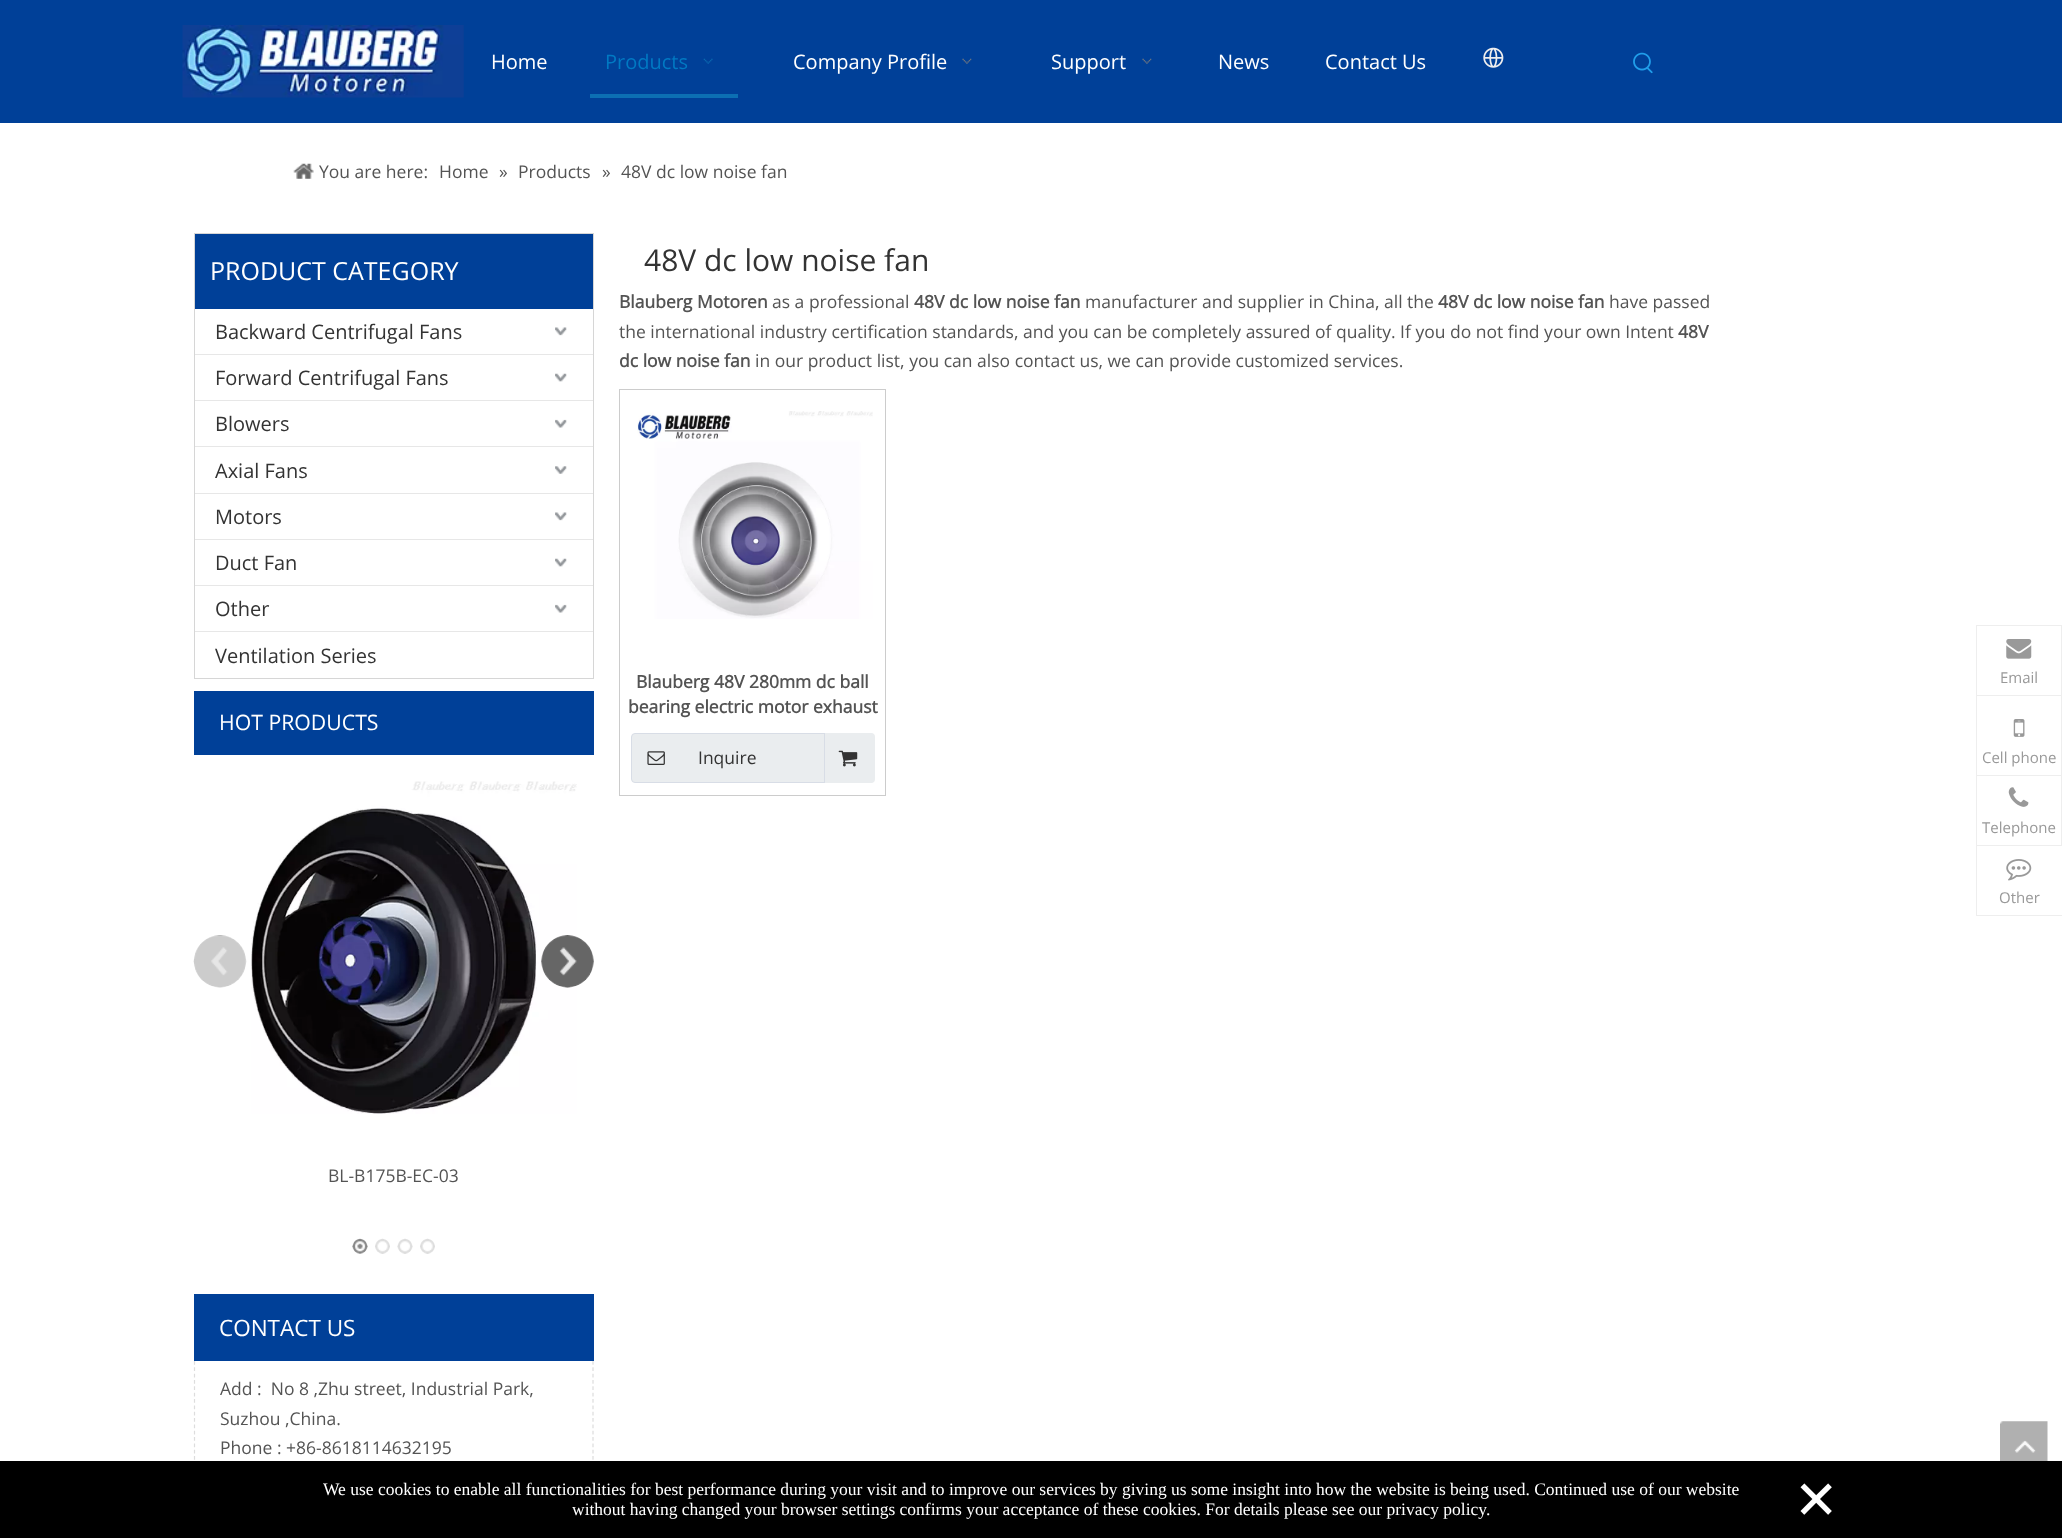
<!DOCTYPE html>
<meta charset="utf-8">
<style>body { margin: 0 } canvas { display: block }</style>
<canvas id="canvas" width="2062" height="1538"></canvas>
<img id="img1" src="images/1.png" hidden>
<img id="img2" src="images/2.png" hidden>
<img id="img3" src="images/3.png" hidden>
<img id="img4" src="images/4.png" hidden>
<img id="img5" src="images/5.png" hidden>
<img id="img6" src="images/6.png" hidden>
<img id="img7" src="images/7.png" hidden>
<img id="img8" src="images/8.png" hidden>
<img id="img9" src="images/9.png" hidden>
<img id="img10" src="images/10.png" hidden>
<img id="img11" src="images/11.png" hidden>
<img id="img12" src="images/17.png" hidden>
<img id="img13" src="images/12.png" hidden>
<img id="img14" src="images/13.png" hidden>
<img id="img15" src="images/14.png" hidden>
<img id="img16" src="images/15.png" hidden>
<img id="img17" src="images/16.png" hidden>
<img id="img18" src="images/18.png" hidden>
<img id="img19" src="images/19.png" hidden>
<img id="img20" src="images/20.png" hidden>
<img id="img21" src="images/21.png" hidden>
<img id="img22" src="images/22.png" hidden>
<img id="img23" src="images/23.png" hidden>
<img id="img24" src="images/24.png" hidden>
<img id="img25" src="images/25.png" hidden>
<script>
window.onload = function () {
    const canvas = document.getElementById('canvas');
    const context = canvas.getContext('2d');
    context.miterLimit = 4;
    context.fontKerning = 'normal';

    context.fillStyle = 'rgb(255, 255, 255)';
    context.fillRect(0, 0, 2062, 1538);
    context.fillStyle = 'rgb(0, 64, 152)';
    context.fillRect(0, 0, 2062, 123);
    context.drawImage(document.getElementById('img1'), 182, 25, 282, 73);
    context.fillStyle = 'rgb(12, 111, 179)';
    context.fillRect(590, 94, 148, 4);
    context.drawImage(document.getElementById('img2'), 703, 58, 10, 6);
    context.drawImage(document.getElementById('img3'), 962, 58, 10, 6);
    context.drawImage(document.getElementById('img3'), 1142, 58, 10, 6);
    context.drawImage(document.getElementById('img4'), 1483, 47, 21, 21);
    context.drawImage(document.getElementById('img5'), 1633, 52, 20, 22);
    context.drawImage(document.getElementById('img6'), 293, 163, 21, 16);
    context.strokeStyle = 'rgb(214, 214, 214)';
    context.strokeRect(194.5, 233.5, 399, 445);
    context.fillStyle = 'rgb(0, 64, 152)';
    context.fillRect(195, 234, 398, 75);
    context.drawImage(document.getElementById('img7'), 555, 327, 12, 9);
    context.fillStyle = 'rgb(231, 231, 231)';
    context.fillRect(195, 354, 398, 1);
    context.drawImage(document.getElementById('img8'), 555, 373, 12, 9);
    context.fillRect(195, 400, 398, 1);
    context.drawImage(document.getElementById('img9'), 555, 419, 12, 9);
    context.fillRect(195, 446, 398, 1);
    context.drawImage(document.getElementById('img10'), 555, 466, 12, 8);
    context.fillRect(195, 493, 398, 1);
    context.drawImage(document.getElementById('img7'), 555, 512, 12, 9);
    context.fillRect(195, 539, 398, 1);
    context.drawImage(document.getElementById('img8'), 555, 558, 12, 9);
    context.fillRect(195, 585, 398, 1);
    context.drawImage(document.getElementById('img9'), 555, 604, 12, 9);
    context.fillRect(195, 631, 398, 1);
    context.fillStyle = 'rgb(0, 64, 152)';
    context.fillRect(194, 691, 400, 64);
    context.drawImage(document.getElementById('img11'), 193, 935, 54, 53);
    context.drawImage(document.getElementById('img12'), 251, 781, 326, 333);
    context.drawImage(document.getElementById('img13'), 541, 935, 53, 53);
    context.drawImage(document.getElementById('img14'), 352, 1238, 16, 16);
    context.drawImage(document.getElementById('img15'), 375, 1238, 15, 16);
    context.drawImage(document.getElementById('img16'), 397, 1238, 16, 16);
    context.drawImage(document.getElementById('img17'), 420, 1238, 15, 16);
    context.fillRect(194, 1294, 400, 67);
    context.beginPath();
    context.moveTo(593, 1361);
    context.lineTo(593, 1536);
    context.strokeStyle = 'rgb(221, 221, 221)';
    context.lineWidth = 1.2;
    context.setLineDash([3.75, 2.59]);
    context.stroke();
    context.beginPath();
    context.moveTo(194.5, 1361);
    context.lineTo(194.5, 1536);
    context.stroke();
    context.strokeStyle = 'rgb(204, 204, 204)';
    context.lineWidth = 1;
    context.setLineDash([]);
    context.strokeRect(619.5, 389.5, 266, 406);
    context.drawImage(document.getElementById('img18'), 637, 411, 236, 208);
    context.fillStyle = 'rgb(234, 237, 239)';
    context.beginPath();
    context.roundRect(631.5, 733.5, 242, 49, 3.5);
    context.fill();
    context.strokeStyle = 'rgb(216, 221, 230)';
    context.stroke();
    context.drawImage(document.getElementById('img19'), 647, 751, 18, 14);
    context.beginPath();
    context.roundRect(824, 733, 51, 50, [0, 4, 4, 0]);
    context.fill();
    context.fillStyle = 'rgb(216, 221, 230)';
    context.fillRect(824, 733, 1, 50);
    context.drawImage(document.getElementById('img20'), 838, 750, 20, 17);
    context.fillStyle = 'rgb(238, 238, 238)';
    context.fillRect(1976, 625, 86, 1);
    context.fillRect(2061, 625, 1, 70);
    context.fillRect(1976, 625, 1, 70);
    context.drawImage(document.getElementById('img21'), 2006, 639, 26, 20);
    context.fillRect(1976, 695, 86, 1);
    context.fillRect(2061, 695, 1, 80);
    context.fillRect(1976, 695, 1, 80);
    context.drawImage(document.getElementById('img22'), 2013, 719, 12, 18);
    context.fillRect(1976, 775, 86, 1);
    context.fillRect(2061, 775, 1, 70);
    context.fillRect(1976, 775, 1, 70);
    context.drawImage(document.getElementById('img23'), 2008, 787, 21, 20);
    context.strokeStyle = 'rgb(238, 238, 238)';
    context.strokeRect(1976.5, 845.5, 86, 70);
    context.drawImage(document.getElementById('img24'), 2006, 859, 26, 22);
    context.drawImage(document.getElementById('img25'), 2000, 1421, 48, 40);
    context.fillStyle = 'rgb(0, 0, 0)';
    context.fillRect(0, 1461, 2062, 77);
    context.font = '20px Open Sans';
    context.fillStyle = 'rgb(255, 255, 255)';
    context.fillText('Home', 491, 69);
    context.fillStyle = 'rgb(0, 121, 195)';
    context.fillText('Products', 605, 69);
    context.fillStyle = 'rgb(255, 255, 255)';
    context.fillText('Company Profile', 793, 69);
    context.fillText('Support', 1051, 69);
    context.fillText('News', 1218, 69);
    context.fillText('Contact Us', 1325, 69);
    context.font = '17.5px Open Sans';
    context.fillStyle = 'rgb(84, 84, 84)';
    context.fillText('You are here:', 319, 178);
    context.fillText('Home', 439, 178);
    context.fillText('»', 499, 178);
    context.fillText('Products', 518, 178);
    context.fillText('»', 602, 178);
    context.fillText('48V dc low noise fan', 621, 178);
    context.font = '25px Open Sans';
    context.fillStyle = 'rgb(255, 255, 255)';
    context.fillText('PRODUCT CATEGORY', 210, 280);
    context.font = '20px Open Sans';
    context.fillStyle = 'rgb(51, 51, 51)';
    context.fillText('Backward Centrifugal Fans', 215, 339);
    context.fillText('Forward Centrifugal Fans', 215, 385);
    context.fillText('Blowers', 215, 431);
    context.fillText('Axial Fans', 215, 478);
    context.fillText('Motors', 215, 524);
    context.fillText('Duct Fan', 215, 570);
    context.fillText('Other', 215, 616);
    context.fillText('Ventilation Series', 215, 663);
    context.font = '21.25px Open Sans';
    context.fillStyle = 'rgb(255, 255, 255)';
    context.fillText('HOT PRODUCTS', 219, 730);
    context.font = '17.5px Open Sans';
    context.fillStyle = 'rgb(84, 84, 84)';
    context.fillText('BL-B175B-EC-03', 328, 1182);
    context.font = '22.5px Open Sans';
    context.fillStyle = 'rgb(255, 255, 255)';
    context.fillText('CONTACT US', 219, 1336);
    context.font = '17.5px Open Sans';
    context.fillStyle = 'rgb(84, 84, 84)';
    context.fillText('Add :  No 8 ,Zhu street, Industrial Park,', 220, 1395);
    context.fillText('Suzhou ,China.', 220, 1425);
    context.fillText('Phone : +86-8618114632195', 220, 1454);
    context.font = '30px Open Sans';
    context.fillStyle = 'rgb(51, 51, 51)';
    context.fillText('48V dc low noise fan', 644, 271);
    context.font = 'bold 17.5px Open Sans';
    context.fillStyle = 'rgb(84, 84, 84)';
    context.fillText('Blauberg Motoren', 619, 308);
    context.font = '17.5px Open Sans';
    context.fillText('as a professional', 772, 308);
    context.font = 'bold 17.5px Open Sans';
    context.fillText('48V dc low noise fan', 914, 308);
    context.font = '17.5px Open Sans';
    context.fillText('manufacturer and supplier in China, all the', 1085, 308);
    context.font = 'bold 17.5px Open Sans';
    context.fillText('48V dc low noise fan', 1438, 308);
    context.font = '17.5px Open Sans';
    context.fillText('have passed', 1609, 308);
    context.fillText('the international industry certification standards, and you can be completely assured of quality. If you do not find your own Intent', 619, 338);
    context.font = 'bold 17.5px Open Sans';
    context.fillText('48V', 1678, 338);
    context.fillText('dc low noise fan', 619, 367);
    context.font = '17.5px Open Sans';
    context.fillText('in our product list, you can also contact us, we can provide customized services.', 755, 367);
    context.font = 'bold 17.5px Open Sans';
    context.fillText('Blauberg 48V 280mm dc ball', 636, 688);
    context.fillText('bearing electric motor exhaust', 628, 713);
    context.font = '17.5px Open Sans';
    context.fillStyle = 'rgb(51, 51, 51)';
    context.fillText('Inquire', 698, 764);
    context.font = '15px Open Sans';
    context.fillStyle = 'rgb(153, 153, 153)';
    context.fillText('Email', 2000, 683);
    context.fillText('Cell phone', 1982, 763);
    context.fillText('Telephone', 1982, 833);
    context.fillText('Other', 1999, 903);
    context.font = '17.5px Liberation Serif';
    context.fillStyle = 'rgb(255, 255, 255)';
    context.fillText('We use cookies to enable all functionalities for best performance during your visit and to improve our services by giving us some insight into how the website is being used. Continued use of our website', 323, 1495);
    context.fillText('without having changed your browser settings confirms your acceptance of these cookies. For details please see our privacy policy.', 572, 1515);
    context.font = 'bold 75px Liberation Serif';
    context.fillText('×', 1795, 1524);
};
</script>
